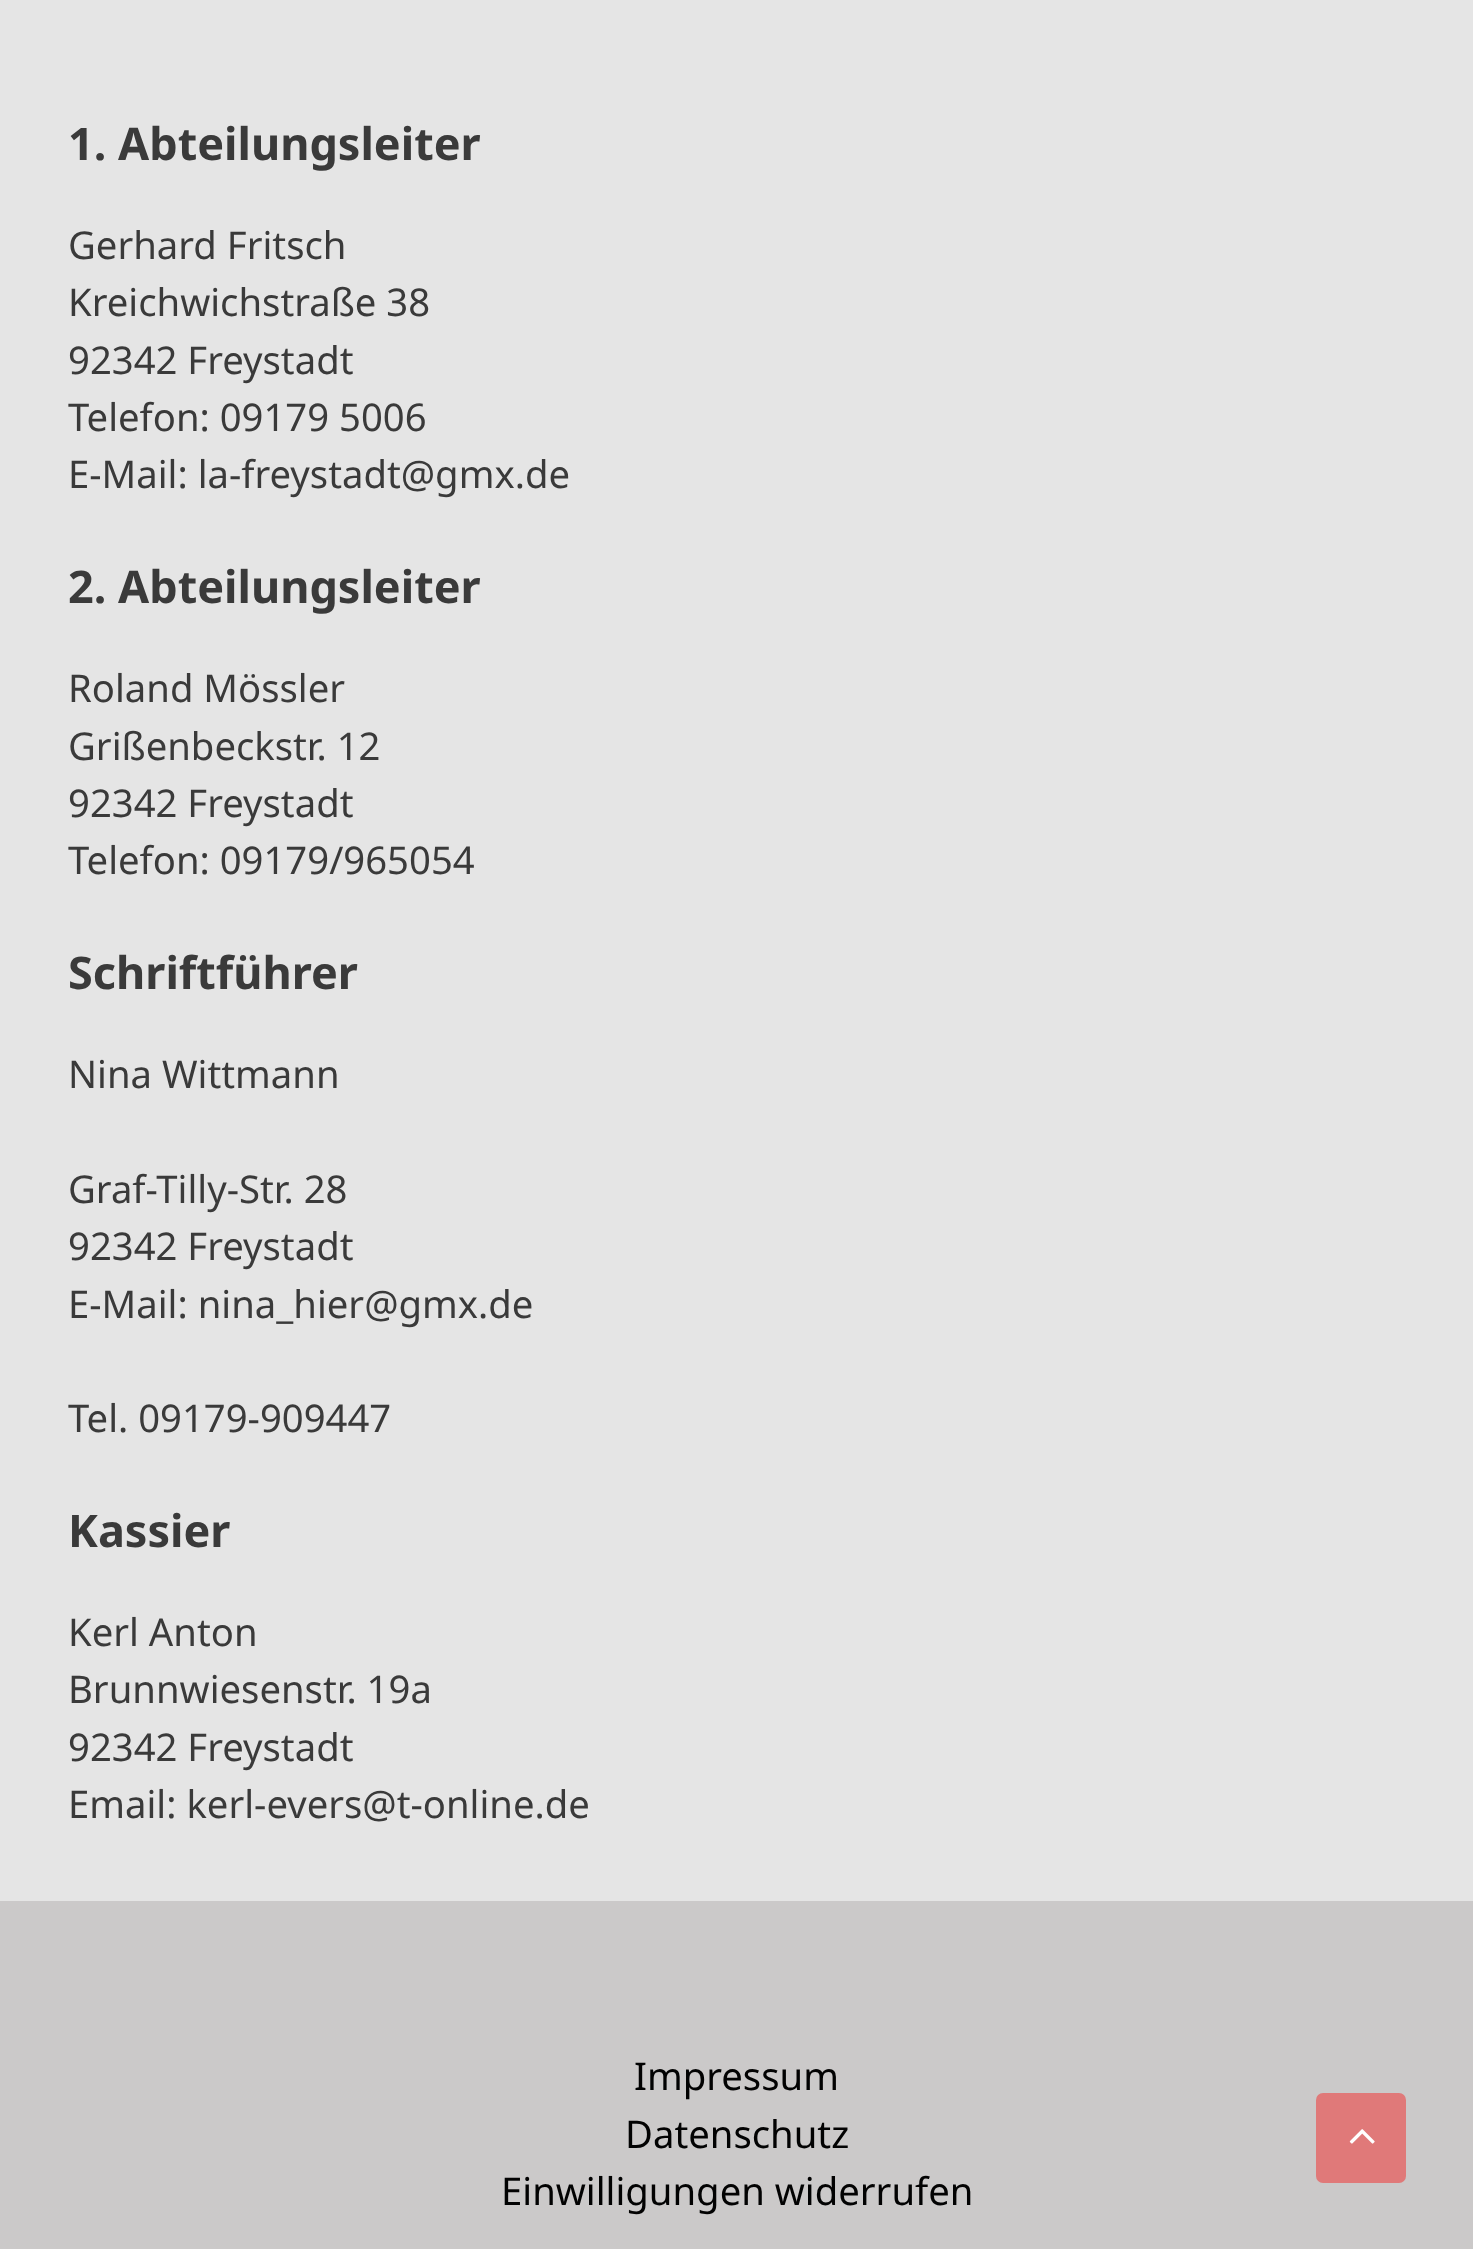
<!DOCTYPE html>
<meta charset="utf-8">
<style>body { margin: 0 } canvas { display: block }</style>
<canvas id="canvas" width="1473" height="2249"></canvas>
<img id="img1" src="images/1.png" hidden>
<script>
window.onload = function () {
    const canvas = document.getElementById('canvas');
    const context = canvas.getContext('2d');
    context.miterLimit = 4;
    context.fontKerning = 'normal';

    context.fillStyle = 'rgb(229, 229, 229)';
    context.fillRect(0, 0, 1473, 2249);
    context.fillStyle = 'rgb(203, 201, 201)';
    context.fillRect(0, 1901, 1473, 348);
    context.fillStyle = 'rgb(224, 121, 121)';
    context.beginPath();
    context.roundRect(1316, 2093, 90, 90, 7);
    context.fill();
    context.drawImage(document.getElementById('img1'), 1349, 2129, 26, 15);
    context.font = 'bold 45px Noto Sans';
    context.fillStyle = 'rgb(58, 58, 58)';
    context.fillText('1. Abteilungsleiter', 68, 160);
    context.font = '38.25px Noto Sans';
    context.fillText('Gerhard Fritsch', 68, 259);
    context.fillText('Kreichwichstraße 38', 68, 316);
    context.fillText('92342 Freystadt', 68, 374);
    context.fillText('Telefon: 09179 5006', 68, 431);
    context.fillText('E-Mail: la-freystadt@gmx.de', 68, 488);
    context.font = 'bold 45px Noto Sans';
    context.fillText('2. Abteilungsleiter', 68, 603);
    context.font = '38.25px Noto Sans';
    context.fillText('Roland Mössler', 68, 702);
    context.fillText('Grißenbeckstr. 12', 68, 760);
    context.fillText('92342 Freystadt', 68, 817);
    context.fillText('Telefon: 09179/965054', 68, 874);
    context.font = 'bold 45px Noto Sans';
    context.fillText('Schriftführer', 68, 989);
    context.font = '38.25px Noto Sans';
    context.fillText('Nina Wittmann', 68, 1088);
    context.fillText('Graf-Tilly-Str. 28', 68, 1203);
    context.fillText('92342 Freystadt', 68, 1260);
    context.fillText('E-Mail: nina_hier@gmx.de', 68, 1318);
    context.fillText('Tel. 09179-909447', 68, 1432);
    context.font = 'bold 45px Noto Sans';
    context.fillText('Kassier', 68, 1547);
    context.font = '38.25px Noto Sans';
    context.fillText('Kerl Anton', 68, 1646);
    context.fillText('Brunnwiesenstr. 19a', 68, 1703);
    context.fillText('92342 Freystadt', 68, 1761);
    context.fillText('Email: kerl-evers@t-online.de', 68, 1818);
    context.fillStyle = 'rgb(2, 2, 2)';
    context.fillText('Impressum', 634, 2090);
    context.fillText('Datenschutz', 625, 2148);
    context.fillText('Einwilligungen widerrufen', 501, 2205);
};
</script>
